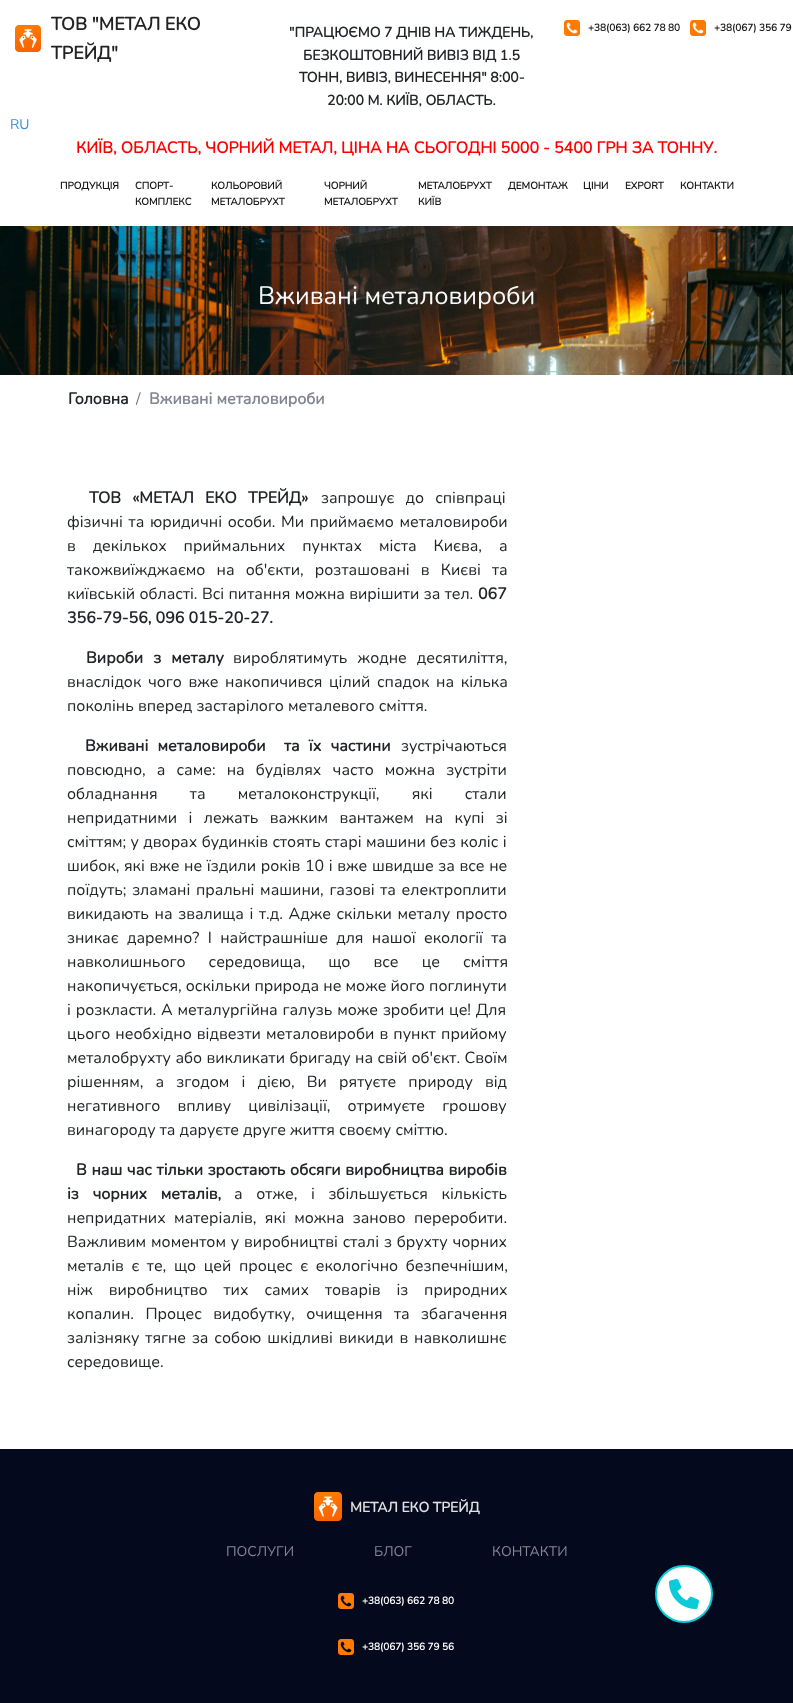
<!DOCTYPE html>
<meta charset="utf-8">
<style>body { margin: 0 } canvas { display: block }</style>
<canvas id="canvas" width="793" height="1703"></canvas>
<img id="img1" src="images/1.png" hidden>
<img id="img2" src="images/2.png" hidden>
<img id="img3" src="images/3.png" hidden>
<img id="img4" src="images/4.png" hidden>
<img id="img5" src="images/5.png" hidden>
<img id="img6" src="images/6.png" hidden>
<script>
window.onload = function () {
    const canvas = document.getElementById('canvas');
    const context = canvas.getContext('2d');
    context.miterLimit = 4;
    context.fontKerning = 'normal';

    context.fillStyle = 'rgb(255, 255, 255)';
    context.fillRect(0, 0, 793, 1703);
    context.drawImage(document.getElementById('img1'), 15, 25, 26, 27);
    context.drawImage(document.getElementById('img2'), 564, 20, 16, 16);
    context.drawImage(document.getElementById('img2'), 690, 20, 16, 16);
    context.drawImage(document.getElementById('img3'), 0, 226, 793, 149);
    context.save();
    context.beginPath();
    context.rect(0, 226, 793, 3);
    context.clip();
    context.fillStyle = 'rgba(34, 34, 34, 0.07)';
    context.filter = 'blur(2px)';
    context.beginPath();
    context.rect(0, 164, 793, 64);
    context.fill();
    context.filter = 'none';
    context.restore();
    context.fillStyle = 'rgb(4, 9, 30)';
    context.fillRect(0, 1449, 793, 254);
    context.drawImage(document.getElementById('img4'), 314, 1492, 28, 29);
    context.drawImage(document.getElementById('img5'), 338, 1593, 16, 16);
    context.drawImage(document.getElementById('img5'), 338, 1639, 16, 16);
    context.fillStyle = 'rgb(255, 255, 255)';
    context.beginPath();
    context.arc(684, 1594, 28, 0, 2 * Math.PI);
    context.fill();
    context.strokeStyle = 'rgb(10, 203, 215)';
    context.lineWidth = 2;
    context.stroke();
    context.drawImage(document.getElementById('img6'), 669, 1579, 30, 30);
    context.font = 'bold 18px Nunito';
    context.fillStyle = 'rgb(34, 34, 34)';
    context.fillText('ТОВ "МЕТАЛ ЕКО', 51, 30);
    context.fillText('ТРЕЙД"', 51, 59);
    context.font = 'bold 14px Nunito';
    context.fillStyle = 'rgb(33, 37, 41)';
    context.fillText('"ПРАЦЮЄМО 7 ДНІВ НА ТИЖДЕНЬ,', 289, 37);
    context.fillText('БЕЗКОШТОВНИЙ ВИВІЗ ВІД 1.5', 303, 60);
    context.fillText('ТОНН, ВИВІЗ, ВИНЕСЕННЯ" 8:00-', 299, 82);
    context.fillText('20:00 М. КИЇВ, ОБЛАСТЬ.', 327, 105);
    context.font = 'bold 10px Nunito';
    context.fillStyle = 'rgb(24, 24, 24)';
    context.fillText('+38(063) 662 78 80', 588, 31);
    context.fillText('+38(067) 356 79', 714, 31);
    context.font = '200 14px Nunito';
    context.fillStyle = 'rgb(52, 144, 220)';
    context.fillText('RU', 10, 129);
    context.font = 'bold 16px Nunito';
    context.fillStyle = 'rgb(255, 0, 0)';
    context.fillText('КИЇВ, ОБЛАСТЬ, ЧОРНИЙ МЕТАЛ, ЦІНА НА СЬОГОДНІ 5000 - 5400 ГРН ЗА ТОННУ.', 76, 153);
    context.font = 'bold 10px Nunito';
    context.fillStyle = 'rgb(24, 24, 24)';
    context.fillText('ПРОДУКЦІЯ', 60, 189);
    context.fillText('СПОРТ-', 135, 189);
    context.fillText('КОМПЛЕКС', 135, 205);
    context.fillText('КОЛЬОРОВИЙ', 211, 189);
    context.fillText('МЕТАЛОБРУХТ', 211, 205);
    context.fillText('ЧОРНИЙ', 324, 189);
    context.fillText('МЕТАЛОБРУХТ', 324, 205);
    context.fillText('МЕТАЛОБРУХТ', 418, 189);
    context.fillText('КИЇВ', 418, 205);
    context.fillText('ДЕМОНТАЖ', 508, 189);
    context.fillText('ЦІНИ', 583, 189);
    context.fillText('EXPORT', 625, 189);
    context.fillText('КОНТАКТИ', 680, 189);
    context.font = '200 25.25px Nunito';
    context.fillStyle = 'rgb(248, 249, 250)';
    context.fillText('Вживані металовироби', 258, 304);
    context.font = 'bold 16px Nunito';
    context.fillStyle = 'rgb(33, 37, 41)';
    context.fillText('Головна', 68, 404);
    context.font = '200 16px Nunito';
    context.fillStyle = 'rgb(108, 117, 125)';
    context.fillText('/', 136, 404);
    context.font = 'bold 16px Nunito';
    context.fillStyle = 'rgb(131, 135, 148)';
    context.fillText('Вживані металовироби', 149, 404);
    context.wordSpacing = '7px';
    context.fillStyle = 'rgb(33, 37, 41)';
    context.fillText('ТОВ «МЕТАЛ ЕКО ТРЕЙД»', 89, 503);
    context.font = '200 16px Nunito';
    context.fillText('запрошує до співпраці', 321, 503);
    context.wordSpacing = '1.5px';
    context.fillText('фізичні та юридичні особи. Ми приймаємо металовироби', 67, 527);
    context.wordSpacing = '12.75px';
    context.fillText('в декількох приймальних пунктах міста Києва, а', 67, 551);
    context.wordSpacing = '7px';
    context.fillText('такожвиїжджаємо на об\'єкти, розташовані в Києві та', 67, 575);
    context.wordSpacing = '0.25px';
    context.fillText('київській області. Всі питання можна вирішити за тел.', 67, 599);
    context.wordSpacing = '0px';
    context.font = 'bold 16px Nunito';
    context.fillText('067', 478, 599);
    context.fillText('356-79-56, 096 015-20-27.', 67, 623);
    context.wordSpacing = '6px';
    context.fillText('Вироби з металу', 86, 663);
    context.font = '200 16px Nunito';
    context.fillText('вироблятимуть жодне десятиліття,', 233, 663);
    context.wordSpacing = '2.5px';
    context.fillText('внаслідок чого вже накопичився цілий спадок на кілька', 67, 687);
    context.wordSpacing = '0px';
    context.fillText('поколінь вперед застарілого металевого сміття.', 67, 711);
    context.wordSpacing = '5px';
    context.font = 'bold 16px Nunito';
    context.fillText('Вживані металовироби  та їх частини', 85, 751);
    context.wordSpacing = '0px';
    context.font = '200 16px Nunito';
    context.fillText('зустрічаються', 401, 751);
    context.wordSpacing = '7px';
    context.fillText('повсюдно, а саме: на будівлях часто можна зустріти', 67, 775);
    context.wordSpacing = '28px';
    context.fillText('обладнання та металоконструкції, які стали', 67, 799);
    context.wordSpacing = '7.25px';
    context.fillText('непридатними і лежать важким вантажем на купі зі', 67, 823);
    context.wordSpacing = '0.25px';
    context.fillText('сміттям; у дворах будинків стоять старі машини без коліс і', 67, 847);
    context.wordSpacing = '0.5px';
    context.fillText('шибок, які вже не їздили років 10 і вже швидше за все не', 67, 871);
    context.wordSpacing = '1.5px';
    context.fillText('поїдуть; зламані пральні машини, газові та електроплити', 67, 895);
    context.fillText('викидають на звалища і т.д. Адже скільки металу просто', 67, 919);
    context.wordSpacing = '4.25px';
    context.fillText('зникає даремно? І найстрашніше для нашої екології та', 67, 943);
    context.wordSpacing = '19px';
    context.fillText('навколишнього середовища, що все це сміття', 67, 967);
    context.wordSpacing = '0px';
    context.fillText('накопичується, оскільки природа не може його поглинути', 67, 991);
    context.wordSpacing = '0.75px';
    context.fillText('і розкласти. А металургійна галузь може зробити це! Для', 67, 1015);
    context.wordSpacing = '1px';
    context.fillText('цього необхідно відвезти металовироби в пункт прийому', 67, 1039);
    context.wordSpacing = '0.25px';
    context.fillText('металобрухту або викликати бригаду на свій об\'єкт. Своїм', 67, 1063);
    context.wordSpacing = '8px';
    context.fillText('рішенням, а згодом і дією, Ви рятуєте природу від', 67, 1087);
    context.wordSpacing = '13px';
    context.fillText('негативного впливу цивілізації, отримуєте грошову', 67, 1111);
    context.wordSpacing = '0px';
    context.fillText('винагороду та даруєте друге життя своєму сміттю.', 67, 1135);
    context.wordSpacing = '0.5px';
    context.font = 'bold 16px Nunito';
    context.fillText('В наш час тільки зростають обсяги виробництва виробів', 76, 1175);
    context.wordSpacing = '9.5px';
    context.fillText('із чорних металів,', 67, 1199);
    context.font = '200 16px Nunito';
    context.fillText('а отже, і збільшується кількість', 234, 1199);
    context.wordSpacing = '4.25px';
    context.fillText('непридатних матеріалів, які можна заново переробити.', 67, 1223);
    context.wordSpacing = '0.75px';
    context.fillText('Важливим моментом у виробництві сталі з брухту чорних', 67, 1247);
    context.wordSpacing = '3.5px';
    context.fillText('металів є те, що цей процес є екологічно безпечнішим,', 67, 1271);
    context.wordSpacing = '11.75px';
    context.fillText('ніж виробництво тих самих товарів із природних', 67, 1295);
    context.wordSpacing = '7.25px';
    context.fillText('копалин. Процес видобутку, очищення та збагачення', 67, 1319);
    context.wordSpacing = '1.75px';
    context.fillText('залізняку тягне за собою шкідливі викиди в навколишнє', 67, 1343);
    context.wordSpacing = '0px';
    context.fillText('середовище.', 67, 1367);
    context.font = 'bold 14px Nunito';
    context.fillStyle = 'rgb(225, 225, 225)';
    context.fillText('МЕТАЛ ЕКО ТРЕЙД', 350, 1512);
    context.font = '200 14px Nunito';
    context.fillStyle = 'rgb(131, 135, 148)';
    context.fillText('ПОСЛУГИ', 226, 1556);
    context.fillText('БЛОГ', 374, 1556);
    context.fillText('КОНТАКТИ', 492, 1556);
    context.font = 'bold 10px Nunito';
    context.fillStyle = 'rgb(255, 255, 255)';
    context.fillText('+38(063) 662 78 80', 362, 1604);
    context.fillText('+38(067) 356 79 56', 362, 1650);
};
</script>
